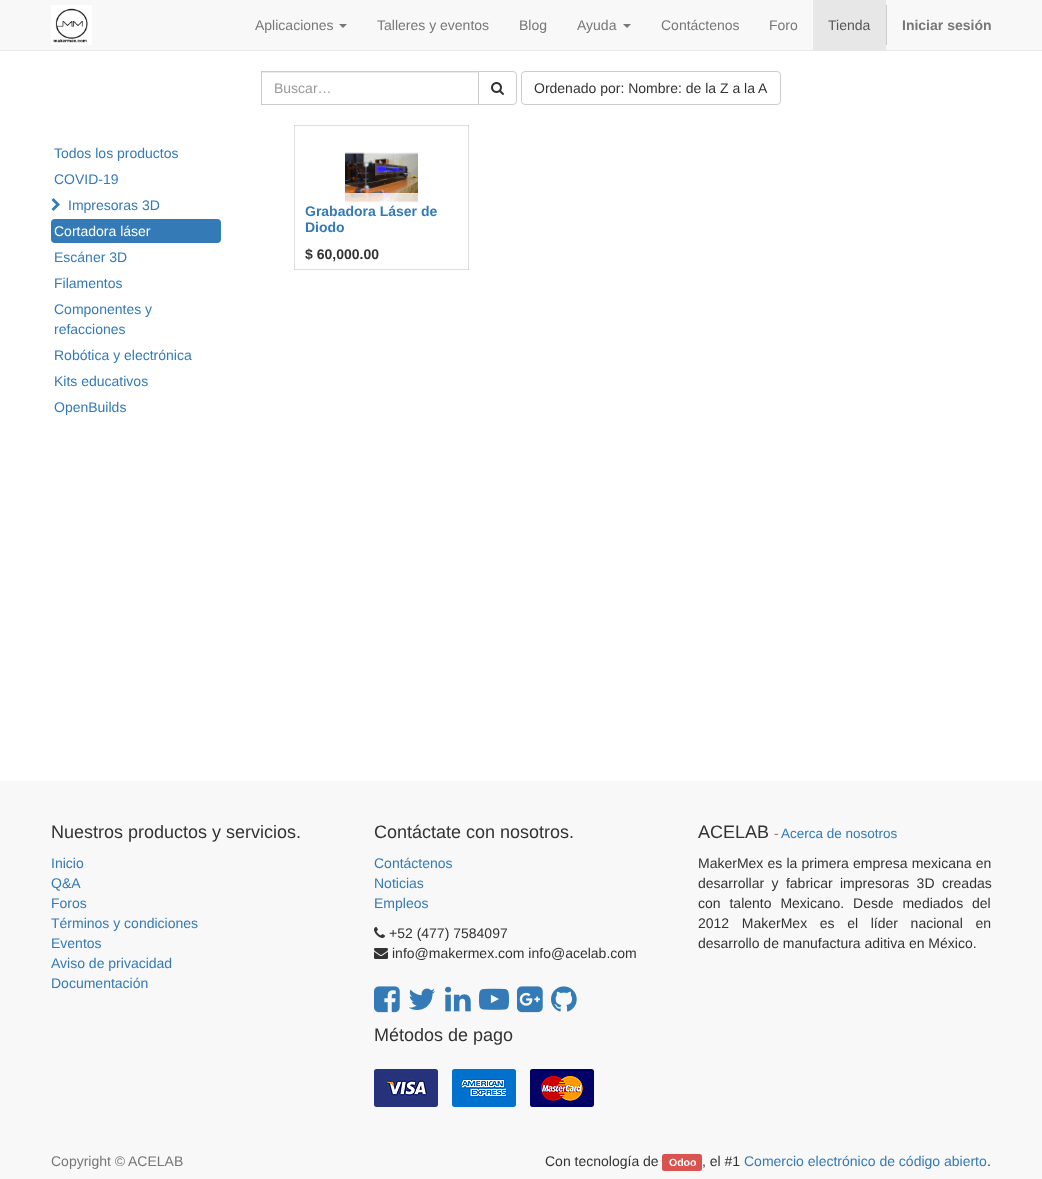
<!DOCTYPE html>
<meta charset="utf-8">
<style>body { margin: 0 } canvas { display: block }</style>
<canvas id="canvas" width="1042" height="1179"></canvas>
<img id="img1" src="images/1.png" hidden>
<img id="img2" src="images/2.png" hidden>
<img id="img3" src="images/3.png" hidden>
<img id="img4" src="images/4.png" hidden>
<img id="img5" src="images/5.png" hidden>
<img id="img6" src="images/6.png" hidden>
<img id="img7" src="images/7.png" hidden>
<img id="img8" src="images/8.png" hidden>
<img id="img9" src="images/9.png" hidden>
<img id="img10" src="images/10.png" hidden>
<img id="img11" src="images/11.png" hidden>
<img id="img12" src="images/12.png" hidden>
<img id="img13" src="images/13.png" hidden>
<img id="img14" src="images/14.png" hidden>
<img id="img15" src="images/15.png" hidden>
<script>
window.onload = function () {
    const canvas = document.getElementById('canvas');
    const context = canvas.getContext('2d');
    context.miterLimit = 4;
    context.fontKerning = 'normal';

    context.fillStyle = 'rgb(255, 255, 255)';
    context.fillRect(0, 0, 1042, 1179);
    context.fillStyle = 'rgb(224, 224, 224)';
    context.fillRect(294, 125, 1, 145);
    context.fillRect(294, 269, 175, 1);
    context.fillStyle = 'rgb(199, 199, 199)';
    context.fillRect(294, 269, 1, 1);
    context.fillStyle = 'rgb(224, 224, 224)';
    context.fillRect(468, 125, 1, 145);
    context.fillStyle = 'rgb(199, 199, 199)';
    context.fillRect(468, 269, 1, 1);
    context.fillStyle = 'rgb(248, 248, 248)';
    context.fillRect(0, 0, 1042, 50);
    context.fillStyle = 'rgb(231, 231, 231)';
    context.fillRect(0, 50, 1042, 1);
    context.drawImage(document.getElementById('img1'), 51, 5, 41, 40);
    context.fillStyle = 'rgb(119, 119, 119)';
    context.beginPath();
    context.moveTo(339, 24);
    context.lineTo(347, 24);
    context.lineTo(343, 28);
    context.closePath();
    context.fill();
    context.beginPath();
    context.moveTo(623, 24);
    context.lineTo(631, 24);
    context.lineTo(627, 28);
    context.closePath();
    context.fill();
    context.fillStyle = 'rgb(231, 231, 231)';
    context.fillRect(813, 0, 73, 50);
    context.fillStyle = 'rgb(204, 204, 204)';
    context.fillRect(886, 5, 1, 40);
    context.fillStyle = 'rgb(236, 236, 236)';
    context.fillRect(262, 72, 216, 1);
    context.strokeStyle = 'rgb(204, 204, 204)';
    context.strokeRect(261.5, 71.5, 217, 33);
    context.fillStyle = 'rgb(255, 255, 255)';
    context.beginPath();
    context.roundRect(478.5, 71.5, 38, 33, [0, 3.5, 3.5, 0]);
    context.fill();
    context.stroke();
    context.drawImage(document.getElementById('img2'), 491, 82, 13, 13);
    context.beginPath();
    context.roundRect(521.5, 71.5, 259, 33, 3.5);
    context.stroke();
    context.drawImage(document.getElementById('img3'), 51, 198, 9, 13);
    context.fillStyle = 'rgb(51, 122, 183)';
    context.beginPath();
    context.roundRect(51, 219, 170, 24, 4);
    context.fill();
    context.fillStyle = 'rgb(224, 224, 224)';
    context.fillRect(294, 125, 175, 1);
    context.fillStyle = 'rgb(199, 199, 199)';
    context.fillRect(294, 125, 1, 1);
    context.fillRect(468, 125, 1, 1);
    context.drawImage(document.getElementById('img4'), 345, 152, 73, 51);
    context.fillStyle = 'rgba(255, 255, 255, 0.75)';
    context.fillRect(345, 193, 73, 10);
    context.fillStyle = 'rgba(255, 255, 255, 0.2)';
    context.fillRect(345, 193, 73, 1);
    context.fillStyle = 'rgb(248, 248, 248)';
    context.fillRect(0, 781, 1042, 398);
    context.drawImage(document.getElementById('img5'), 374, 927, 11, 11);
    context.drawImage(document.getElementById('img6'), 374, 948, 14, 11);
    context.drawImage(document.getElementById('img7'), 374, 986, 26, 27);
    context.drawImage(document.getElementById('img8'), 409, 988, 26, 22);
    context.drawImage(document.getElementById('img9'), 445, 986, 26, 26);
    context.drawImage(document.getElementById('img10'), 479, 988, 30, 22);
    context.drawImage(document.getElementById('img11'), 517, 986, 26, 27);
    context.drawImage(document.getElementById('img12'), 551, 986, 26, 26);
    context.drawImage(document.getElementById('img13'), 374, 1069, 64, 38);
    context.drawImage(document.getElementById('img14'), 452, 1069, 64, 38);
    context.drawImage(document.getElementById('img15'), 530, 1069, 64, 38);
    context.fillStyle = 'rgb(217, 83, 79)';
    context.beginPath();
    context.roundRect(662, 1154, 40, 17, 2.5);
    context.fill();
    context.font = '14px Liberation Sans';
    context.fillStyle = 'rgb(119, 119, 119)';
    context.fillText('Aplicaciones', 255, 30);
    context.fillText('Talleres y eventos', 377, 30);
    context.fillText('Blog', 519, 30);
    context.fillText('Ayuda', 577, 30);
    context.fillText('Contáctenos', 661, 30);
    context.fillText('Foro', 769, 30);
    context.fillStyle = 'rgb(85, 85, 85)';
    context.fillText('Tienda', 828, 30);
    context.font = 'bold 14px Liberation Sans';
    context.fillStyle = 'rgb(119, 119, 119)';
    context.fillText('Iniciar sesión', 902, 30);
    context.font = '14px Liberation Sans';
    context.fillStyle = 'rgb(153, 153, 153)';
    context.fillText('Buscar…', 274, 93);
    context.fillStyle = 'rgb(51, 51, 51)';
    context.fillText('Ordenado por: Nombre: de la Z a la A', 534, 93);
    context.fillStyle = 'rgb(51, 122, 183)';
    context.fillText('Todos los productos', 54, 158);
    context.fillText('COVID-19', 54, 184);
    context.fillText('Impresoras 3D', 68, 210);
    context.fillStyle = 'rgb(255, 255, 255)';
    context.fillText('Cortadora láser', 54, 236);
    context.fillStyle = 'rgb(51, 122, 183)';
    context.fillText('Escáner 3D', 54, 262);
    context.fillText('Filamentos', 54, 288);
    context.fillText('Componentes y', 54, 314);
    context.fillText('refacciones', 54, 334);
    context.fillText('Robótica y electrónica', 54, 360);
    context.fillText('Kits educativos', 54, 386);
    context.fillText('OpenBuilds', 54, 412);
    context.font = 'bold 14px Liberation Sans';
    context.fillText('Grabadora Láser de', 305, 216);
    context.fillText('Diodo', 305, 232);
    context.fillStyle = 'rgb(51, 51, 51)';
    context.fillText('$ 60,000.00', 305, 259);
    context.font = '18px Liberation Sans';
    context.fillText('Nuestros productos y servicios.', 51, 838);
    context.font = '14px Liberation Sans';
    context.fillStyle = 'rgb(51, 122, 183)';
    context.fillText('Inicio', 51, 868);
    context.fillText('Q&A', 51, 888);
    context.fillText('Foros', 51, 908);
    context.fillText('Términos y condiciones', 51, 928);
    context.fillText('Eventos', 51, 948);
    context.fillText('Aviso de privacidad', 51, 968);
    context.fillText('Documentación', 51, 988);
    context.font = '18px Liberation Sans';
    context.fillStyle = 'rgb(51, 51, 51)';
    context.fillText('Contáctate con nosotros.', 374, 838);
    context.font = '14px Liberation Sans';
    context.fillStyle = 'rgb(51, 122, 183)';
    context.fillText('Contáctenos', 374, 868);
    context.fillText('Noticias', 374, 888);
    context.fillText('Empleos', 374, 908);
    context.fillStyle = 'rgb(51, 51, 51)';
    context.fillText('+52 (477) 7584097', 389, 938);
    context.fillText('info@makermex.com info@acelab.com', 392, 958);
    context.font = '18px Liberation Sans';
    context.fillText('Métodos de pago', 374, 1041);
    context.fillText('ACELAB', 698, 838);
    context.font = '13.5px Liberation Sans';
    context.fillStyle = 'rgb(119, 119, 119)';
    context.fillText('-', 774, 838);
    context.fillStyle = 'rgb(51, 122, 183)';
    context.fillText('Acerca de nosotros', 781, 838);
    context.wordSpacing = '0.25px';
    context.font = '14px Liberation Sans';
    context.fillStyle = 'rgb(51, 51, 51)';
    context.fillText('MakerMex es la primera empresa mexicana en', 698, 868);
    context.wordSpacing = '3.5px';
    context.fillText('desarrollar y fabricar impresoras 3D creadas', 698, 888);
    context.wordSpacing = '5px';
    context.fillText('con talento Mexicano. Desde mediados del', 698, 908);
    context.wordSpacing = '8.75px';
    context.fillText('2012 MakerMex es el líder nacional en', 698, 928);
    context.wordSpacing = '0px';
    context.fillText('desarrollo de manufactura aditiva en México.', 698, 948);
    context.fillStyle = 'rgb(119, 119, 119)';
    context.fillText('Copyright ©', 51, 1166);
    context.fillText('ACELAB', 128, 1166);
    context.fillStyle = 'rgb(51, 51, 51)';
    context.fillText('Con tecnología de', 545, 1166);
    context.font = 'bold 10.5px Liberation Sans';
    context.fillStyle = 'rgb(255, 255, 255)';
    context.fillText('Odoo', 669, 1166);
    context.font = '14px Liberation Sans';
    context.fillStyle = 'rgb(51, 51, 51)';
    context.fillText(', el #1', 702, 1166);
    context.fillStyle = 'rgb(51, 122, 183)';
    context.fillText('Comercio electrónico de código abierto', 744, 1166);
    context.fillStyle = 'rgb(51, 51, 51)';
    context.fillText('.', 987, 1166);
};
</script>
